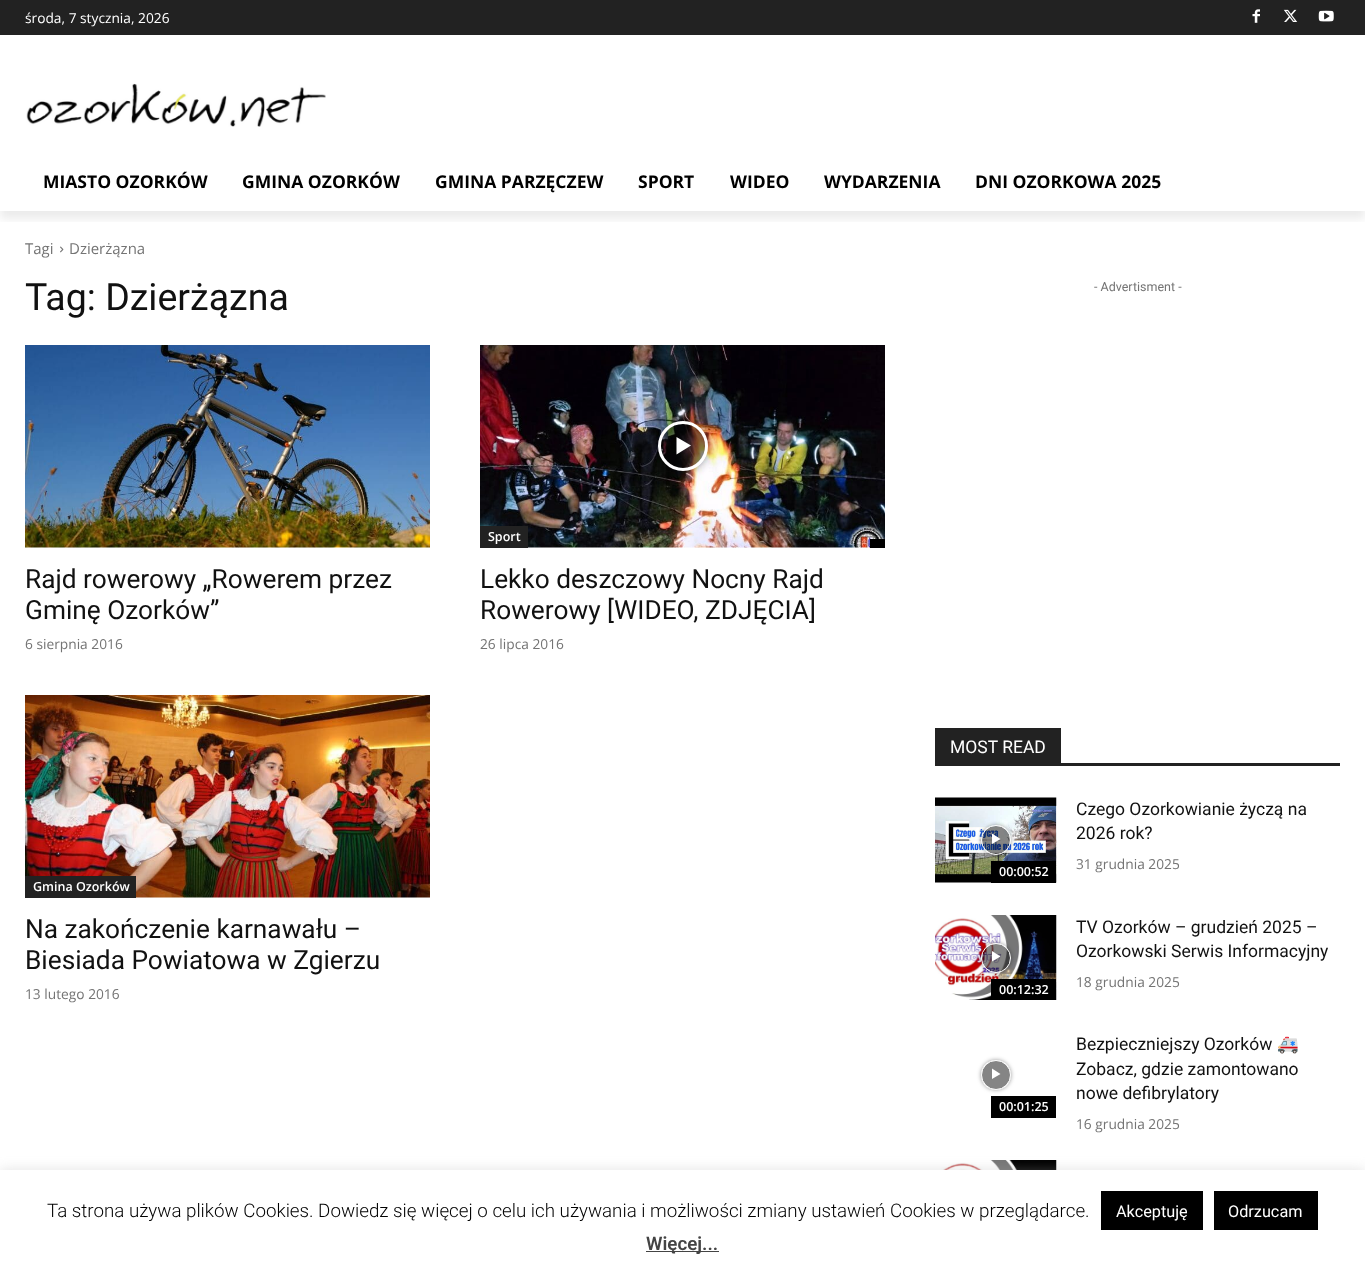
<!DOCTYPE html>
<meta charset="utf-8">
<style>body { margin: 0 } canvas { display: block }</style>
<canvas id="canvas" width="1365" height="1272"></canvas>
<img id="img1" src="images/1.png" hidden>
<img id="img2" src="images/2.png" hidden>
<img id="img3" src="images/3.png" hidden>
<img id="img4" src="images/4.png" hidden>
<img id="img5" src="images/5.png" hidden>
<img id="img6" src="images/6.png" hidden>
<img id="img7" src="images/7.png" hidden>
<img id="img8" src="images/8.png" hidden>
<img id="img9" src="images/9.png" hidden>
<img id="img10" src="images/10.png" hidden>
<img id="img11" src="images/11.png" hidden>
<script>
window.onload = function () {
    const canvas = document.getElementById('canvas');
    const context = canvas.getContext('2d');
    context.miterLimit = 4;
    context.fontKerning = 'normal';

    context.fillStyle = 'rgb(255, 255, 255)';
    context.fillRect(0, 0, 1365, 1272);
    context.fillStyle = 'rgb(34, 34, 34)';
    context.fillRect(0, 0, 1365, 35);
    context.drawImage(document.getElementById('img1'), 1252, 9, 8, 14);
    context.drawImage(document.getElementById('img2'), 1283, 9, 15, 13);
    context.drawImage(document.getElementById('img3'), 1318, 10, 16, 12);
    context.drawImage(document.getElementById('img4'), 26, 83, 300, 44);
    context.save();
    context.beginPath();
    context.rect(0, 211, 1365, 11);
    context.clip();
    context.fillStyle = 'rgba(0, 0, 0, 0.08)';
    context.filter = 'blur(5px)';
    context.beginPath();
    context.rect(0, 8, 1365, 211);
    context.fill();
    context.filter = 'none';
    context.restore();
    context.drawImage(document.getElementById('img5'), 60, 246, 4, 7);
    context.drawImage(document.getElementById('img6'), 25, 345, 405, 203);
    context.drawImage(document.getElementById('img7'), 480, 345, 405, 203);
    context.save();
    context.beginPath();
    context.moveTo(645, 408);
    context.lineTo(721, 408);
    context.lineTo(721, 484);
    context.lineTo(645, 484);
    context.closePath();
    context.moveTo(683, 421);
    context.bezierCurveTo(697, 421, 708, 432, 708, 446);
    context.bezierCurveTo(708, 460, 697, 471, 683, 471);
    context.bezierCurveTo(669, 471, 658, 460, 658, 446);
    context.bezierCurveTo(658, 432, 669, 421, 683, 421);
    context.closePath();
    context.clip('evenodd');
    context.fillStyle = 'rgba(0, 0, 0, 0.4)';
    context.filter = 'blur(4px)';
    context.beginPath();
    context.roundRect(658, 421, 50, 50, 25);
    context.fill();
    context.filter = 'none';
    context.restore();
    context.fillStyle = 'rgba(0, 0, 0, 0.48)';
    context.beginPath();
    context.arc(683, 446, 23.5, 0, 2 * Math.PI);
    context.fill();
    context.strokeStyle = 'rgb(255, 255, 255)';
    context.lineWidth = 3;
    context.stroke();
    context.fillStyle = 'rgb(255, 255, 255)';
    context.beginPath();
    context.moveTo(676.5, 437);
    context.lineTo(676.5, 454.5);
    context.lineTo(691, 445.5);
    context.closePath();
    context.fill();
    context.fillStyle = 'rgb(34, 34, 34)';
    context.fillRect(480, 526, 48, 22);
    context.fillStyle = 'rgb(0, 0, 0)';
    context.fillRect(870, 539, 15, 9);
    context.drawImage(document.getElementById('img8'), 25, 695, 405, 203);
    context.fillStyle = 'rgb(34, 34, 34)';
    context.fillRect(25, 876, 111, 22);
    context.fillRect(935, 763, 405, 3);
    context.fillRect(935, 728, 126, 35);
    context.drawImage(document.getElementById('img9'), 935, 797, 122, 86);
    context.save();
    context.beginPath();
    context.moveTo(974, 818);
    context.lineTo(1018, 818);
    context.lineTo(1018, 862);
    context.lineTo(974, 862);
    context.closePath();
    context.moveTo(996, 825);
    context.bezierCurveTo(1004.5, 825, 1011, 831.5, 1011, 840);
    context.bezierCurveTo(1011, 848.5, 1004.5, 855, 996, 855);
    context.bezierCurveTo(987.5, 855, 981, 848.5, 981, 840);
    context.bezierCurveTo(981, 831.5, 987.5, 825, 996, 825);
    context.closePath();
    context.clip('evenodd');
    context.fillStyle = 'rgba(0, 0, 0, 0.4)';
    context.filter = 'blur(2px)';
    context.beginPath();
    context.roundRect(981, 825, 30, 30, 15);
    context.fill();
    context.filter = 'none';
    context.restore();
    context.fillStyle = 'rgba(0, 0, 0, 0.48)';
    context.beginPath();
    context.arc(996, 840, 14.5, 0, 2 * Math.PI);
    context.fill();
    context.lineWidth = 1;
    context.stroke();
    context.fillStyle = 'rgb(255, 255, 255)';
    context.beginPath();
    context.moveTo(992, 833.5);
    context.lineTo(992, 844);
    context.lineTo(1000.5, 839);
    context.closePath();
    context.fill();
    context.fillStyle = 'rgb(0, 0, 0)';
    context.fillRect(991, 861, 65, 22);
    context.drawImage(document.getElementById('img10'), 935, 915, 122, 85);
    context.save();
    context.beginPath();
    context.moveTo(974, 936);
    context.lineTo(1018, 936);
    context.lineTo(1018, 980);
    context.lineTo(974, 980);
    context.closePath();
    context.moveTo(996, 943);
    context.bezierCurveTo(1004.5, 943, 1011, 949.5, 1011, 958);
    context.bezierCurveTo(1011, 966.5, 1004.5, 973, 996, 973);
    context.bezierCurveTo(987.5, 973, 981, 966.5, 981, 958);
    context.bezierCurveTo(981, 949.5, 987.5, 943, 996, 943);
    context.closePath();
    context.clip('evenodd');
    context.fillStyle = 'rgba(0, 0, 0, 0.4)';
    context.filter = 'blur(2px)';
    context.beginPath();
    context.roundRect(981, 943, 30, 30, 15);
    context.fill();
    context.filter = 'none';
    context.restore();
    context.fillStyle = 'rgba(0, 0, 0, 0.48)';
    context.beginPath();
    context.arc(996, 958, 14.5, 0, 2 * Math.PI);
    context.fill();
    context.stroke();
    context.fillStyle = 'rgb(255, 255, 255)';
    context.beginPath();
    context.moveTo(992, 951);
    context.lineTo(992, 961.5);
    context.lineTo(1000.5, 956.5);
    context.closePath();
    context.fill();
    context.fillStyle = 'rgb(0, 0, 0)';
    context.fillRect(991, 979, 65, 21);
    context.save();
    context.beginPath();
    context.moveTo(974, 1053);
    context.lineTo(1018, 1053);
    context.lineTo(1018, 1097);
    context.lineTo(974, 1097);
    context.closePath();
    context.moveTo(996, 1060);
    context.bezierCurveTo(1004.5, 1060, 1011, 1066.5, 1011, 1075);
    context.bezierCurveTo(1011, 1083.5, 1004.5, 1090, 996, 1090);
    context.bezierCurveTo(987.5, 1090, 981, 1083.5, 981, 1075);
    context.bezierCurveTo(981, 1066.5, 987.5, 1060, 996, 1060);
    context.closePath();
    context.clip('evenodd');
    context.fillStyle = 'rgba(0, 0, 0, 0.4)';
    context.filter = 'blur(2px)';
    context.beginPath();
    context.roundRect(981, 1060, 30, 30, 15);
    context.fill();
    context.filter = 'none';
    context.restore();
    context.fillStyle = 'rgba(0, 0, 0, 0.48)';
    context.beginPath();
    context.arc(996, 1075, 14.5, 0, 2 * Math.PI);
    context.fill();
    context.stroke();
    context.fillStyle = 'rgb(255, 255, 255)';
    context.beginPath();
    context.moveTo(992, 1068.5);
    context.lineTo(992, 1079);
    context.lineTo(1000.5, 1074);
    context.closePath();
    context.fill();
    context.fillStyle = 'rgb(0, 0, 0)';
    context.fillRect(991, 1096, 65, 22);
    context.drawImage(document.getElementById('img11'), 935, 1160, 122, 10);
    context.fillStyle = 'rgba(172, 171, 171, 0.3)';
    context.filter = 'blur(6px)';
    context.beginPath();
    context.rect(0, 1169, 1365, 102);
    context.fill();
    context.filter = 'none';
    context.fillStyle = 'rgb(255, 255, 255)';
    context.fillRect(0, 1170, 1365, 102);
    context.fillStyle = 'rgb(0, 0, 0)';
    context.fillRect(1101, 1191, 102, 39);
    context.fillRect(1214, 1191, 104, 39);
    context.fillStyle = 'rgb(68, 68, 68)';
    context.fillRect(646, 1251, 73, 1);
    context.font = '13.75px Open Sans';
    context.fillStyle = 'rgb(255, 255, 255)';
    context.fillText('środa, 7 stycznia, 2026', 25, 23);
    context.font = 'bold 17.5px Open Sans';
    context.fillStyle = 'rgb(0, 0, 0)';
    context.fillText('MIASTO OZORKÓW', 43, 188);
    context.fillText('GMINA OZORKÓW', 242, 188);
    context.fillText('GMINA PARZĘCZEW', 435, 188);
    context.fillText('SPORT', 638, 188);
    context.fillText('WIDEO', 730, 188);
    context.fillText('WYDARZENIA', 824, 188);
    context.fillText('DNI OZORKOWA 2025', 975, 188);
    context.font = '15px Open Sans';
    context.fillStyle = 'rgb(116, 116, 116)';
    context.fillText('Tagi', 25, 254);
    context.fillText('Dzierżązna', 69, 254);
    context.font = '37.5px Roboto';
    context.fillStyle = 'rgb(17, 17, 17)';
    context.fillText('Tag: Dzierżązna', 25, 310);
    context.font = '26.25px Roboto';
    context.fillText('Rajd rowerowy „Rowerem przez', 25, 588);
    context.fillText('Gminę Ozorków”', 25, 619);
    context.font = '13.75px Open Sans';
    context.fillStyle = 'rgb(116, 116, 116)';
    context.fillText('6 sierpnia 2016', 25, 649);
    context.font = '600 12.5px Open Sans';
    context.fillStyle = 'rgb(255, 255, 255)';
    context.fillText('Sport', 488, 541);
    context.font = '26.25px Roboto';
    context.fillStyle = 'rgb(17, 17, 17)';
    context.fillText('Lekko deszczowy Nocny Rajd', 480, 588);
    context.fillText('Rowerowy [WIDEO, ZDJĘCIA]', 480, 619);
    context.font = '13.75px Open Sans';
    context.fillStyle = 'rgb(116, 116, 116)';
    context.fillText('26 lipca 2016', 480, 649);
    context.font = '600 12.5px Open Sans';
    context.fillStyle = 'rgb(255, 255, 255)';
    context.fillText('Gmina Ozorków', 33, 891);
    context.font = '26.25px Roboto';
    context.fillStyle = 'rgb(17, 17, 17)';
    context.fillText('Na zakończenie karnawału –', 25, 938);
    context.fillText('Biesiada Powiatowa w Zgierzu', 25, 969);
    context.font = '13.75px Open Sans';
    context.fillStyle = 'rgb(116, 116, 116)';
    context.fillText('13 lutego 2016', 25, 999);
    context.font = '12.5px Roboto';
    context.fillText('- Advertisment -', 1094, 291);
    context.font = '17.5px Roboto';
    context.fillStyle = 'rgb(255, 255, 255)';
    context.fillText('MOST READ', 950, 753);
    context.font = '600 12.5px Open Sans';
    context.fillText('00:00:52', 999, 876);
    context.font = '17.5px Roboto';
    context.fillStyle = 'rgb(17, 17, 17)';
    context.fillText('Czego Ozorkowianie życzą na', 1076, 815);
    context.fillText('2026 rok?', 1076, 839);
    context.font = '13.75px Open Sans';
    context.fillStyle = 'rgb(116, 116, 116)';
    context.fillText('31 grudnia 2025', 1076, 869);
    context.font = '600 12.5px Open Sans';
    context.fillStyle = 'rgb(255, 255, 255)';
    context.fillText('00:12:32', 999, 994);
    context.font = '17.5px Roboto';
    context.fillStyle = 'rgb(17, 17, 17)';
    context.fillText('TV Ozorków – grudzień 2025 –', 1076, 933);
    context.fillText('Ozorkowski Serwis Informacyjny', 1076, 957);
    context.font = '13.75px Open Sans';
    context.fillStyle = 'rgb(116, 116, 116)';
    context.fillText('18 grudnia 2025', 1076, 987);
    context.font = '600 12.5px Open Sans';
    context.fillStyle = 'rgb(255, 255, 255)';
    context.fillText('00:01:25', 999, 1111);
    context.font = '17.5px Roboto';
    context.fillStyle = 'rgb(17, 17, 17)';
    context.fillText('Bezpieczniejszy Ozorków', 1076, 1050);
    context.font = '17.5px Noto Color Emoji';
    context.fillText('🚑', 1277, 1050);
    context.font = '17.5px Roboto';
    context.fillText('Zobacz, gdzie zamontowano', 1076, 1075);
    context.fillText('nowe defibrylatory', 1076, 1099);
    context.font = '13.75px Open Sans';
    context.fillStyle = 'rgb(116, 116, 116)';
    context.fillText('16 grudnia 2025', 1076, 1129);
    context.font = '300 18.75px Roboto';
    context.fillStyle = 'rgb(0, 0, 0)';
    context.fillText('Ta strona używa plików Cookies. Dowiedz się więcej o celu ich używania i możliwości zmiany ustawień Cookies w przeglądarce.', 47, 1217);
    context.font = '16.25px Roboto';
    context.fillStyle = 'rgb(255, 255, 255)';
    context.fillText('Akceptuję', 1116, 1217);
    context.fillText('Odrzucam', 1228, 1217);
    context.font = '600 18.75px Roboto';
    context.fillStyle = 'rgb(68, 68, 68)';
    context.fillText('Więcej...', 646, 1250);
};
</script>
